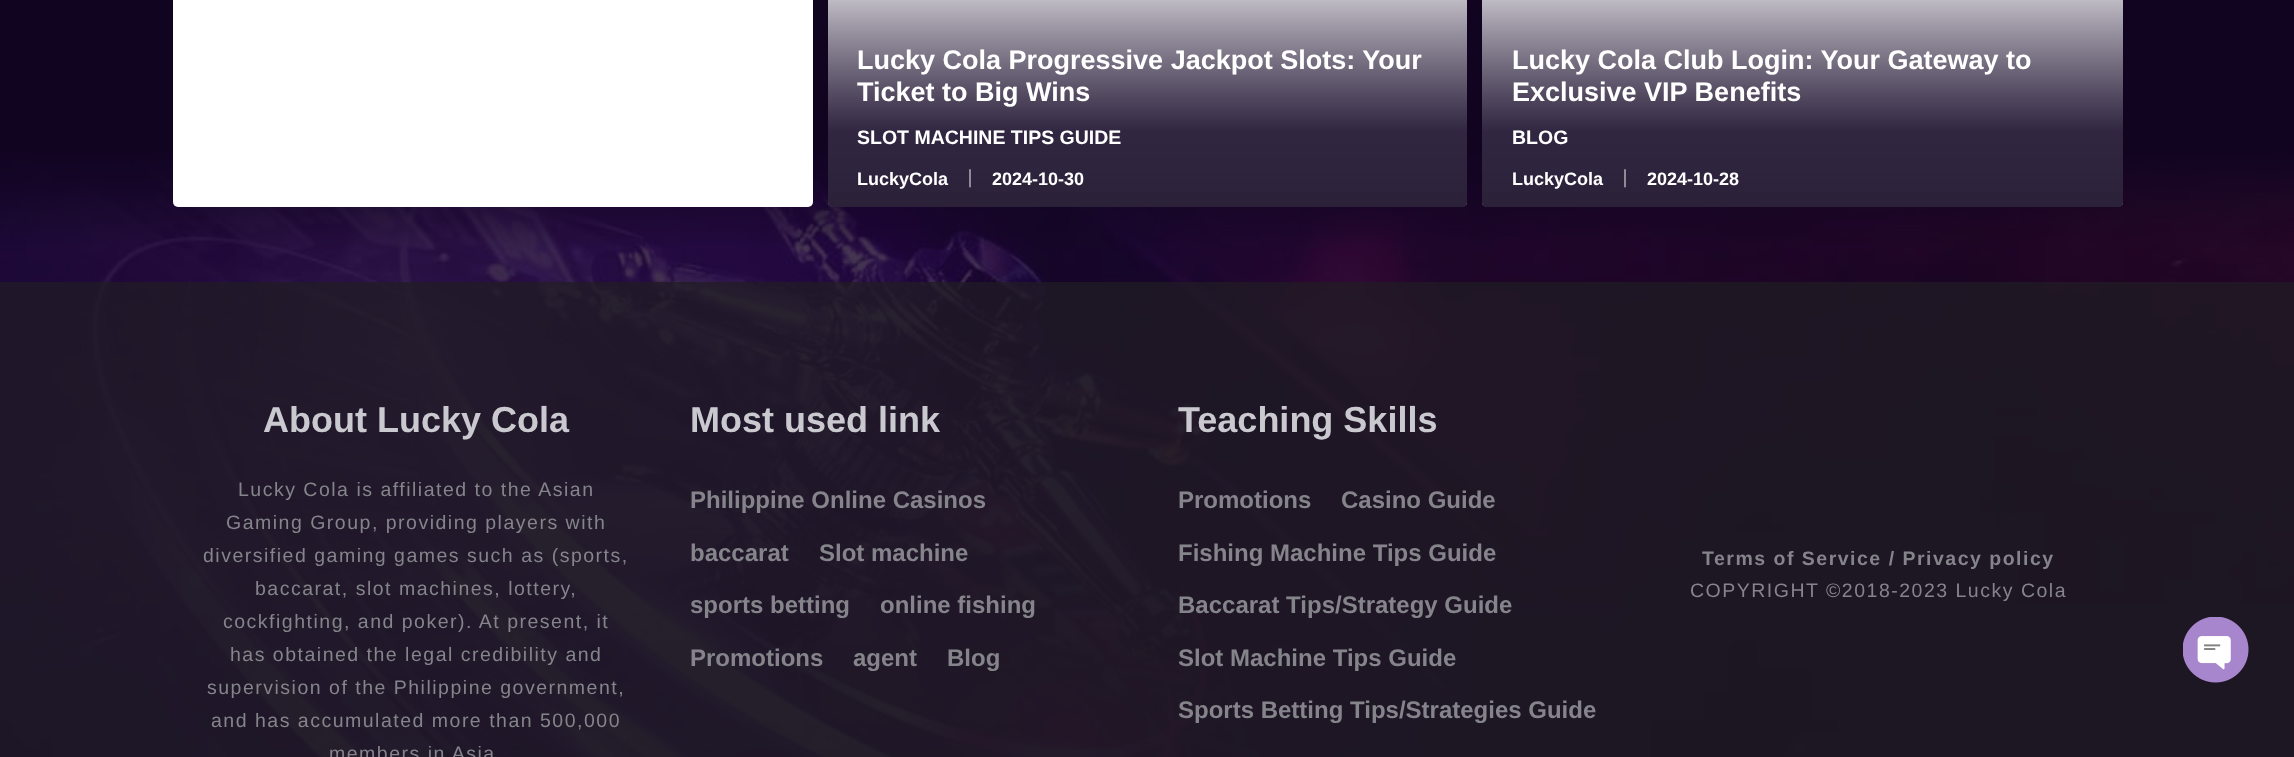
<!DOCTYPE html>
<meta charset="utf-8">
<style>body { margin: 0 } canvas { display: block }</style>
<canvas id="canvas" width="2294" height="757"></canvas>
<img id="img1" src="images/1.png" hidden>
<img id="img2" src="images/2.png" hidden>
<script>
window.onload = function () {
    const canvas = document.getElementById('canvas');
    const context = canvas.getContext('2d');
    context.miterLimit = 4;
    context.fontKerning = 'normal';
    let gradient;

    context.fillStyle = 'rgb(255, 255, 255)';
    context.fillRect(0, 0, 2294, 757);
    context.drawImage(document.getElementById('img1'), 0, 0, 2294, 757);
    context.beginPath();
    context.roundRect(173, -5, 640, 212, 5);
    context.fill();
    context.beginPath();
    context.roundRect(828, -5, 639, 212, 5);
    context.fill();
    gradient = context.createLinearGradient(1148, 207, 1148, -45);
    gradient.addColorStop(0.3, 'rgba(18, 0, 45, 0.8)');
    gradient.addColorStop(1, 'rgba(18, 0, 45, 0)');
    context.fillStyle = gradient;
    context.beginPath();
    context.moveTo(828, -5);
    context.lineTo(1467, -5);
    context.lineTo(1467, 202);
    context.bezierCurveTo(1467, 205, 1465, 207, 1462, 207);
    context.lineTo(833, 207);
    context.bezierCurveTo(830, 207, 828, 205, 828, 202);
    context.closePath();
    context.fill();
    gradient = context.createLinearGradient(1148, 207, 1148, -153);
    gradient.addColorStop(0, 'rgba(0, 0, 0, 0.35)');
    gradient.addColorStop(0.75, 'rgba(0, 0, 0, 0)');
    context.fillStyle = gradient;
    context.beginPath();
    context.roundRect(828, -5, 639, 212, 5);
    context.fill();
    context.fillStyle = 'rgb(255, 255, 255)';
    context.beginPath();
    context.roundRect(1482, -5, 641, 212, 5);
    context.fill();
    gradient = context.createLinearGradient(1802, 207, 1802, -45);
    gradient.addColorStop(0.3, 'rgba(18, 0, 45, 0.8)');
    gradient.addColorStop(1, 'rgba(18, 0, 45, 0)');
    context.fillStyle = gradient;
    context.beginPath();
    context.moveTo(1482, -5);
    context.lineTo(2123, -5);
    context.lineTo(2123, 202);
    context.bezierCurveTo(2123, 205, 2121, 207, 2118, 207);
    context.lineTo(1487, 207);
    context.bezierCurveTo(1484, 207, 1482, 205, 1482, 202);
    context.closePath();
    context.fill();
    gradient = context.createLinearGradient(1802, 207, 1802, -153);
    gradient.addColorStop(0, 'rgba(0, 0, 0, 0.35)');
    gradient.addColorStop(0.75, 'rgba(0, 0, 0, 0)');
    context.fillStyle = gradient;
    context.beginPath();
    context.roundRect(1482, -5, 641, 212, 5);
    context.fill();
    context.fillStyle = 'rgba(32, 28, 35, 0.5)';
    context.fillRect(0, 282, 2294, 475);
    context.fillRect(0, 282, 2294, 475);
    context.drawImage(document.getElementById('img2'), 2183, 617, 66, 66);
    context.font = 'bold 27px Liberation Sans';
    context.fillStyle = 'rgb(255, 255, 255)';
    context.fillText('Lucky Cola Progressive Jackpot Slots: Your', 857, 69);
    context.fillText('Ticket to Big Wins', 857, 101);
    context.font = 'bold 19.5px Liberation Sans';
    context.fillText('SLOT MACHINE TIPS GUIDE', 857, 144);
    context.font = 'bold 18px Liberation Sans';
    context.fillText('LuckyCola', 857, 185);
    context.font = 'bold 18px Noto Sans TC';
    context.fillText('｜', 961, 185);
    context.font = 'bold 18px Liberation Sans';
    context.fillText('2024-10-30', 992, 185);
    context.font = 'bold 27px Liberation Sans';
    context.fillText('Lucky Cola Club Login: Your Gateway to', 1512, 69);
    context.fillText('Exclusive VIP Benefits', 1512, 101);
    context.font = 'bold 19.5px Liberation Sans';
    context.fillText('BLOG', 1512, 144);
    context.font = 'bold 18px Liberation Sans';
    context.fillText('LuckyCola', 1512, 185);
    context.font = 'bold 18px Noto Sans TC';
    context.fillText('｜', 1616, 185);
    context.font = 'bold 18px Liberation Sans';
    context.fillText('2024-10-28', 1647, 185);
    context.font = 'bold 36px Liberation Sans';
    context.fillStyle = 'rgb(202, 201, 208)';
    context.fillText('About Lucky Cola', 263, 432);
    context.letterSpacing = '1.5px';
    context.font = '19.5px Liberation Sans';
    context.fillStyle = 'rgb(133, 132, 139)';
    context.fillText('Lucky Cola is affiliated to the Asian', 238, 496);
    context.fillText('Gaming Group, providing players with', 226, 529);
    context.fillText('diversified gaming games such as (sports,', 203, 562);
    context.fillText('baccarat, slot machines, lottery,', 255, 595);
    context.fillText('cockfighting, and poker). At present, it', 223, 628);
    context.fillText('has obtained the legal credibility and', 230, 661);
    context.fillText('supervision of the Philippine government,', 207, 694);
    context.fillText('and has accumulated more than 500,000', 211, 727);
    context.fillText('members in Asia', 329, 760);
    context.letterSpacing = '0px';
    context.font = 'bold 36px Liberation Sans';
    context.fillStyle = 'rgb(202, 201, 208)';
    context.fillText('Most used link', 690, 432);
    context.font = 'bold 24px Liberation Sans';
    context.fillStyle = 'rgb(133, 132, 139)';
    context.fillText('Philippine Online Casinos', 690, 508);
    context.fillText('baccarat', 690, 561);
    context.fillText('Slot machine', 819, 561);
    context.fillText('sports betting', 690, 613);
    context.fillText('online fishing', 880, 613);
    context.fillText('Promotions', 690, 666);
    context.fillText('agent', 853, 666);
    context.fillText('Blog', 947, 666);
    context.font = 'bold 36px Liberation Sans';
    context.fillStyle = 'rgb(202, 201, 208)';
    context.fillText('Teaching Skills', 1178, 432);
    context.font = 'bold 24px Liberation Sans';
    context.fillStyle = 'rgb(133, 132, 139)';
    context.fillText('Promotions', 1178, 508);
    context.fillText('Casino Guide', 1341, 508);
    context.fillText('Fishing Machine Tips Guide', 1178, 561);
    context.fillText('Baccarat Tips/Strategy Guide', 1178, 613);
    context.fillText('Slot Machine Tips Guide', 1178, 666);
    context.fillText('Sports Betting Tips/Strategies Guide', 1178, 718);
    context.letterSpacing = '1.5px';
    context.font = 'bold 19.5px Liberation Sans';
    context.fillText('Terms of Service / Privacy policy', 1702, 565);
    context.font = '19.5px Liberation Sans';
    context.fillText('COPYRIGHT ©2018-2023 Lucky Cola', 1690, 597);
};
</script>
